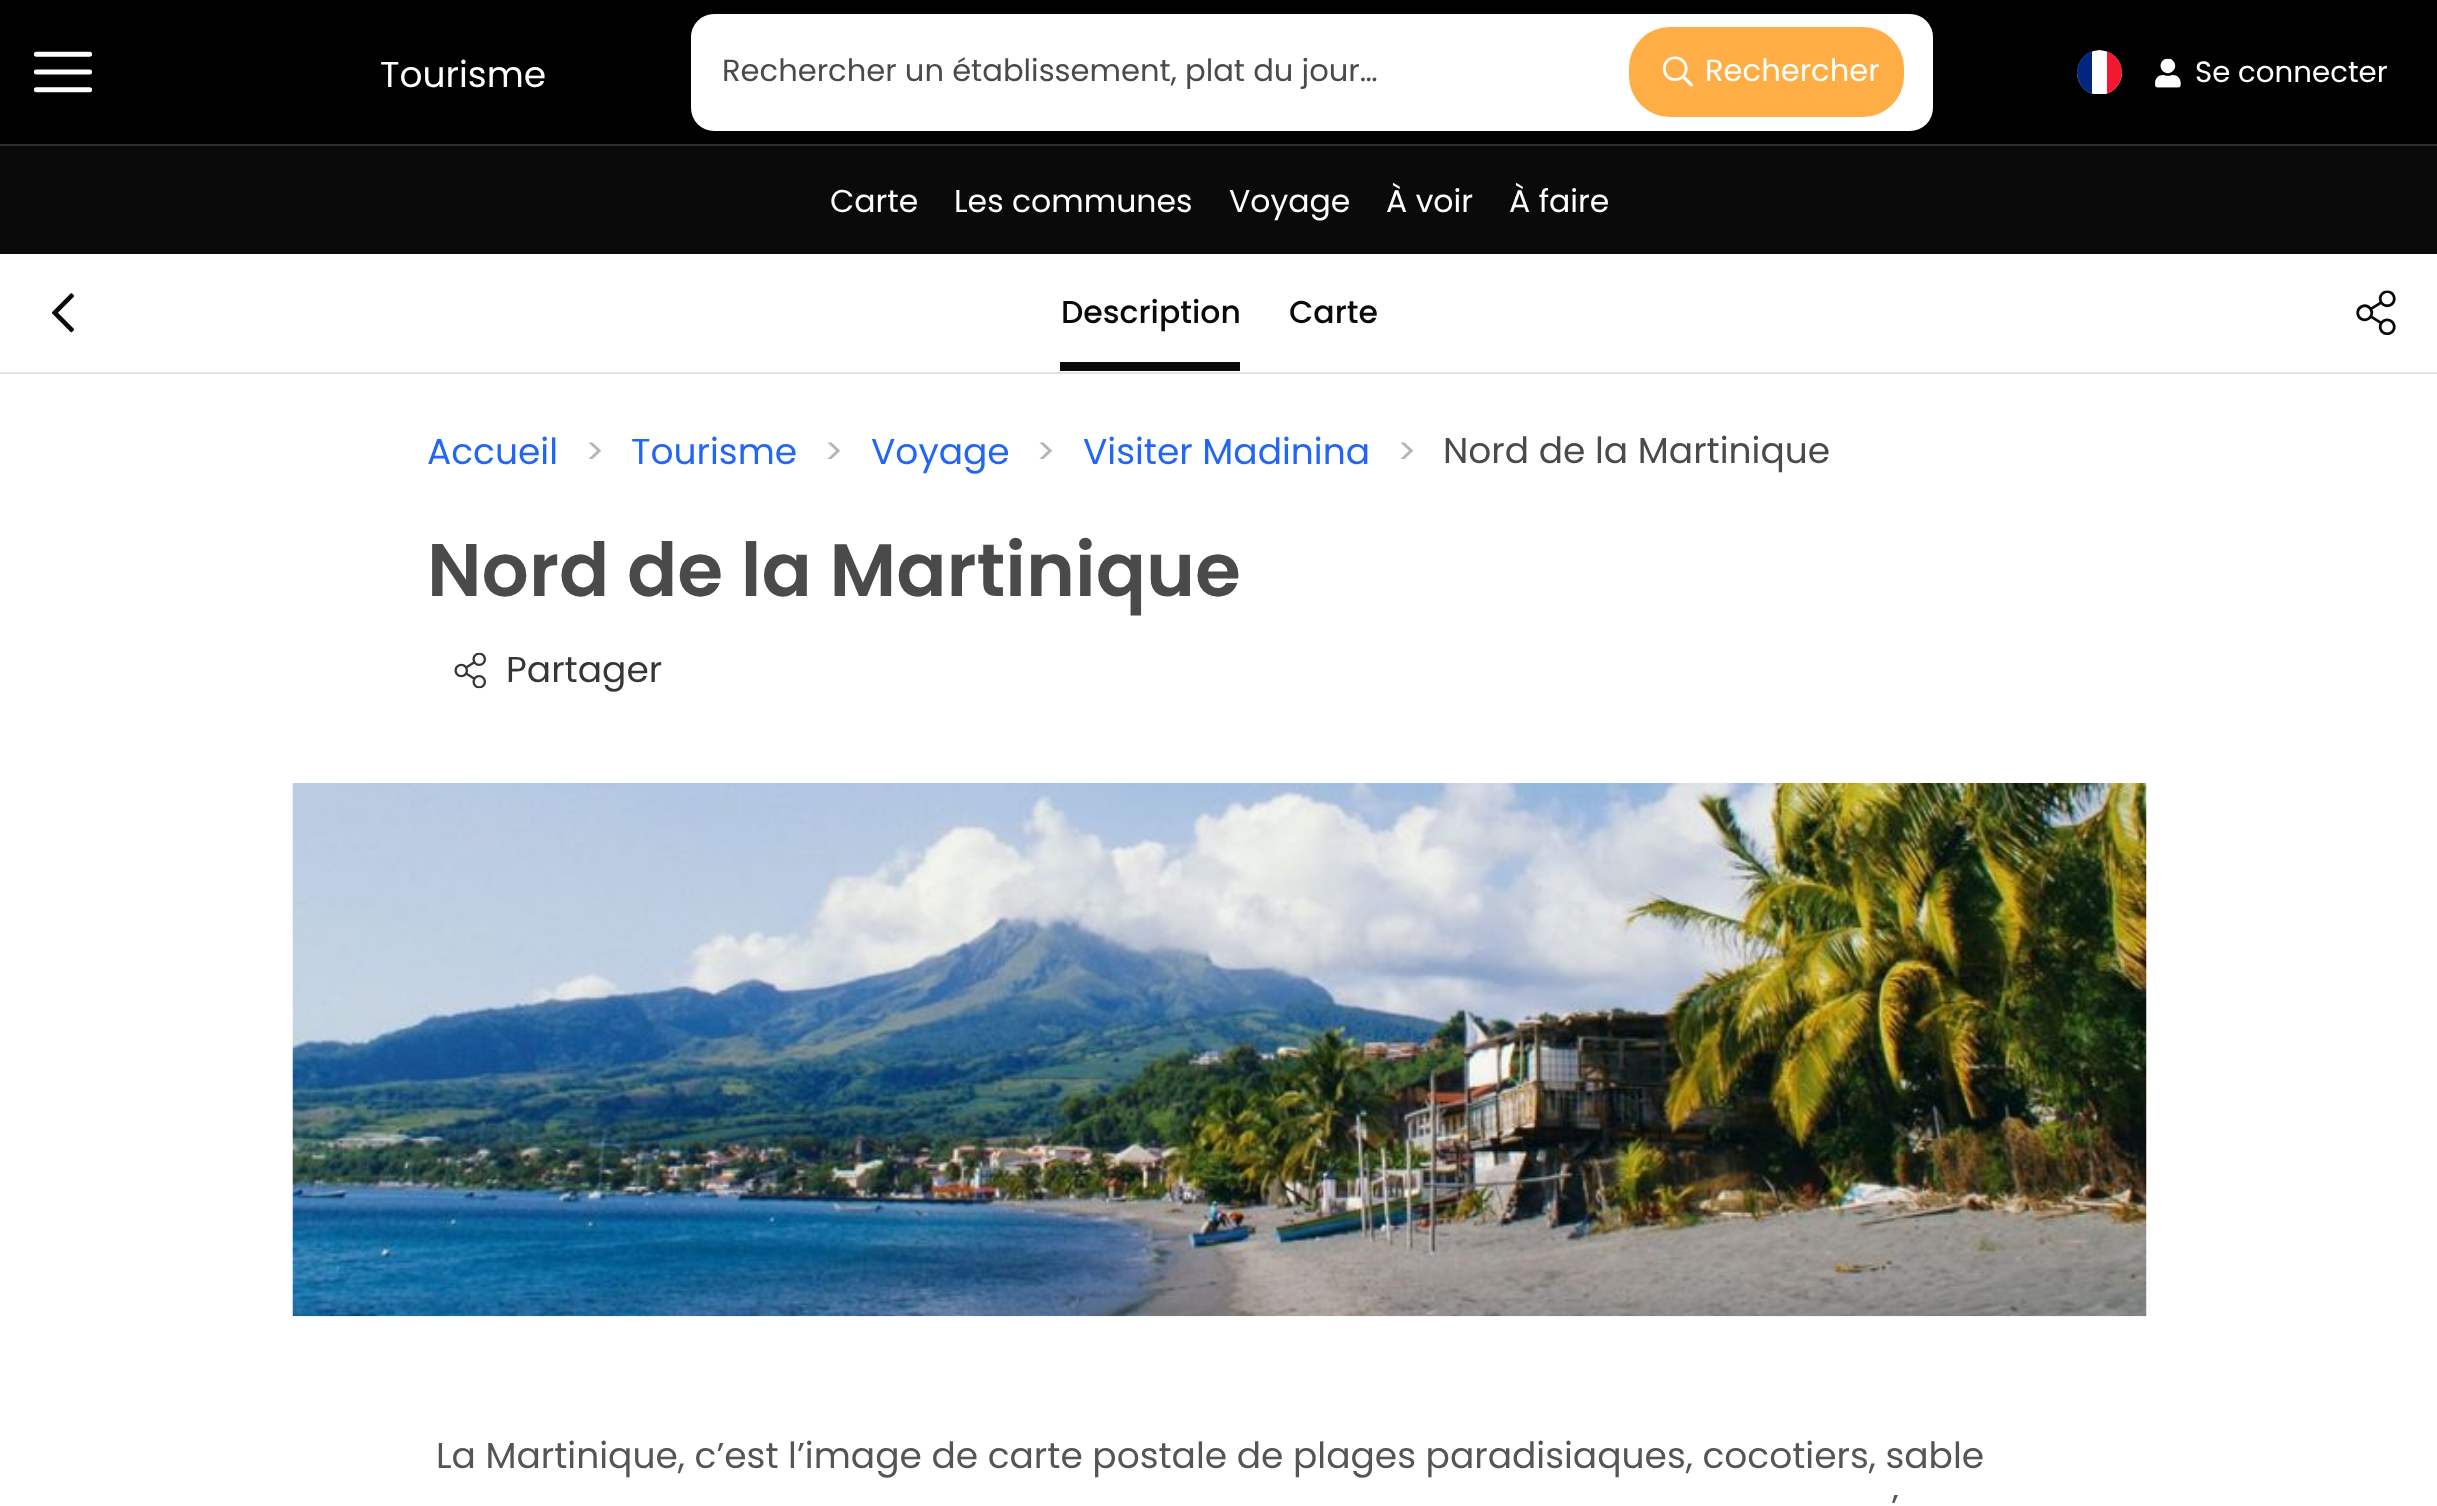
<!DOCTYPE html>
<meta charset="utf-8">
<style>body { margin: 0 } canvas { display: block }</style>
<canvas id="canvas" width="2437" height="1506"></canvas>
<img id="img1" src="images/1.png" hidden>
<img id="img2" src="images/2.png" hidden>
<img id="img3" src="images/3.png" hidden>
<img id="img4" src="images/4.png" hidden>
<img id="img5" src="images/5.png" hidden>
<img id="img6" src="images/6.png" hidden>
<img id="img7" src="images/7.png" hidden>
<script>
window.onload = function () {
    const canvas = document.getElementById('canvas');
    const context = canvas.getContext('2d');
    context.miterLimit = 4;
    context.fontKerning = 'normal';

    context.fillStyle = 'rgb(255, 255, 255)';
    context.fillRect(0, 0, 2437, 1506);
    context.fillStyle = 'rgb(0, 0, 0)';
    context.fillRect(0, 0, 2437, 144);
    context.fillStyle = 'rgb(46, 46, 46)';
    context.fillRect(0, 144, 2437, 2);
    context.drawImage(document.getElementById('img1'), 34, 51, 58, 42);
    context.fillStyle = 'rgb(255, 255, 255)';
    context.beginPath();
    context.roundRect(691, 14, 1242, 117, 23);
    context.fill();
    context.fillStyle = 'rgb(254, 174, 68)';
    context.beginPath();
    context.roundRect(1629, 27, 275, 90, 41);
    context.fill();
    context.drawImage(document.getElementById('img2'), 1663, 56, 31, 31);
    context.save();
    context.beginPath();
    context.roundRect(2077, 50, 45, 45, 22.5);
    context.clip();
    context.fillStyle = 'rgb(255, 255, 255)';
    context.beginPath();
    context.roundRect(2077, 50, 45, 44, [22.5, 22.5, 0, 0]);
    context.fill();
    context.fillStyle = 'rgb(0, 38, 127)';
    context.fillRect(2077, 51, 15, 43);
    context.fillStyle = 'rgb(243, 24, 48)';
    context.fillRect(2107, 51, 15, 43);
    context.restore();
    context.drawImage(document.getElementById('img3'), 2155, 58, 26, 30);
    context.strokeStyle = 'rgb(226, 226, 226)';
    context.lineWidth = 2;
    context.strokeRect(-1, 253, 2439, 120);
    context.fillStyle = 'rgb(10, 10, 10)';
    context.fillRect(0, 146, 2437, 108);
    context.drawImage(document.getElementById('img4'), 51, 293, 23, 40);
    context.fillRect(1060, 362, 180, 9);
    context.drawImage(document.getElementById('img5'), 2356, 290, 40, 45);
    context.drawImage(document.getElementById('img6'), 454, 652, 32, 37);
    context.drawImage(document.getElementById('img7'), 292, 783, 1855, 534);
    context.font = '36px Poppins';
    context.fillStyle = 'rgb(255, 255, 255)';
    context.fillText('Tourisme', 380, 87);
    context.font = '30.6px Poppins';
    context.fillStyle = 'rgb(74, 74, 74)';
    context.fillText('Rechercher un établissement, plat du jour…', 722, 81);
    context.fillStyle = 'rgb(255, 255, 255)';
    context.fillText('Rechercher', 1705, 81);
    context.font = '29.25px Poppins';
    context.fillText('Se connecter', 2195, 82);
    context.font = '31.5px Poppins';
    context.fillText('Carte', 830, 212);
    context.fillText('Les communes', 954, 212);
    context.fillText('Voyage', 1229, 212);
    context.fillText('À voir', 1386, 212);
    context.fillText('À faire', 1509, 212);
    context.font = '500 31.5px Poppins';
    context.fillStyle = 'rgb(10, 10, 10)';
    context.fillText('Description', 1061, 323);
    context.fillText('Carte', 1289, 323);
    context.font = '36px Poppins';
    context.fillStyle = 'rgb(33, 102, 246)';
    context.fillText('Accueil', 427, 464);
    context.fillStyle = 'rgb(181, 181, 181)';
    context.fillText('>', 585, 464);
    context.fillStyle = 'rgb(33, 102, 246)';
    context.fillText('Tourisme', 631, 464);
    context.fillStyle = 'rgb(181, 181, 181)';
    context.fillText('>', 824, 464);
    context.fillStyle = 'rgb(33, 102, 246)';
    context.fillText('Voyage', 871, 464);
    context.fillStyle = 'rgb(181, 181, 181)';
    context.fillText('>', 1036, 464);
    context.fillStyle = 'rgb(33, 102, 246)';
    context.fillText('Visiter Madinina', 1083, 464);
    context.fillStyle = 'rgb(181, 181, 181)';
    context.fillText('>', 1397, 464);
    context.fillStyle = 'rgb(74, 74, 74)';
    context.fillText('Nord de la Martinique', 1443, 463);
    context.font = '600 74.25px Poppins';
    context.fillText('Nord de la Martinique', 427, 596);
    context.font = '36px Poppins';
    context.fillStyle = 'rgb(54, 54, 54)';
    context.fillText('Partager', 506, 682);
    context.fillStyle = 'rgb(85, 85, 85)';
    context.fillText('La Martinique, c’est l’image de carte postale de plages paradisiaques, cocotiers, sable', 436, 1468);
    context.fillText('’', 1891, 1520);
};
</script>
